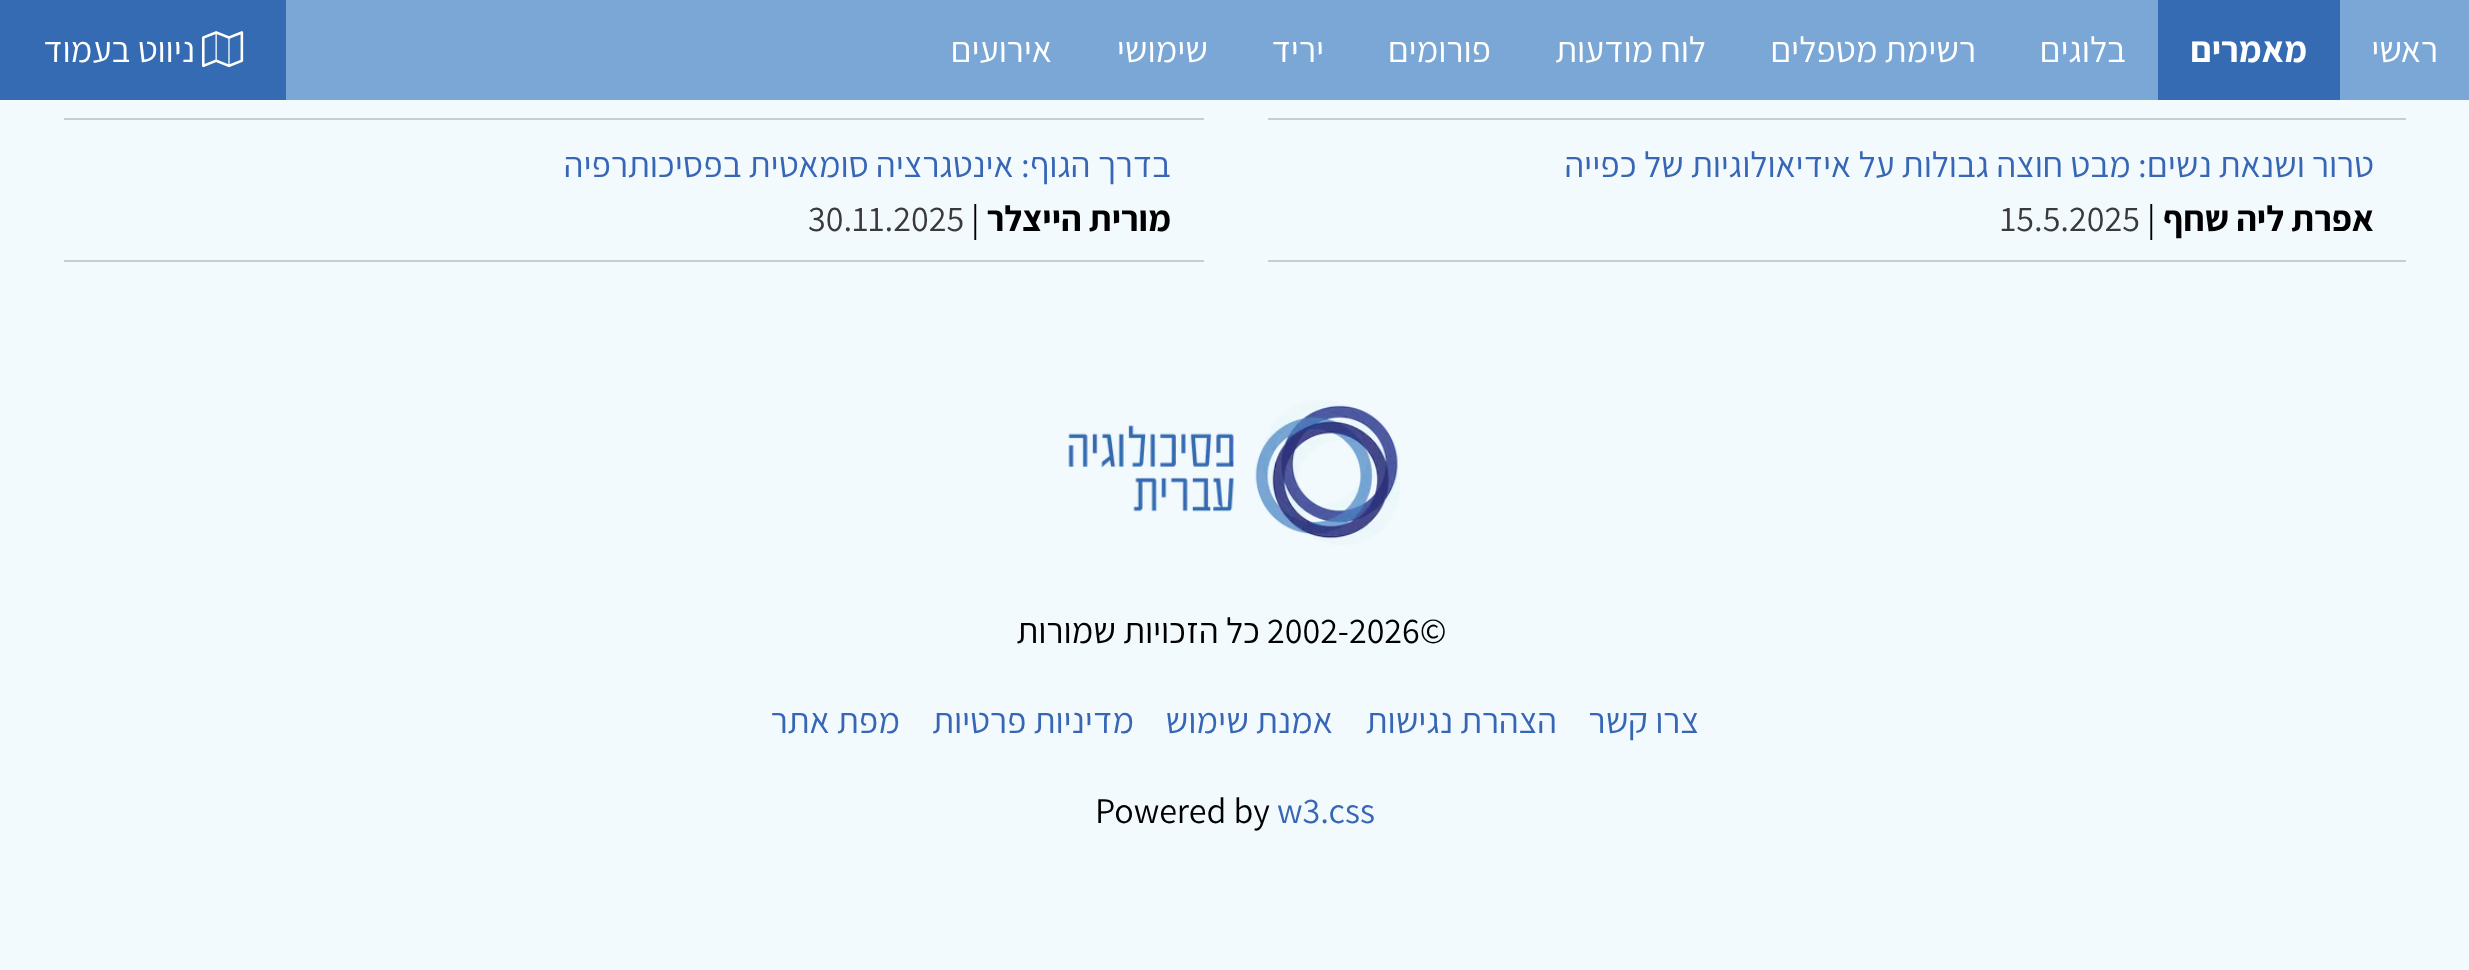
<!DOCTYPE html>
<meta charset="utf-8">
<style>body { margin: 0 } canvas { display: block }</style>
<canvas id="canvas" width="2469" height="970"></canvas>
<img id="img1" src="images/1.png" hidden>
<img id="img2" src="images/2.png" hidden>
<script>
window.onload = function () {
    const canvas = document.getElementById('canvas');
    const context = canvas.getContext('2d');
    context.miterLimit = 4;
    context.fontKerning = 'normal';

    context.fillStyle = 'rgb(243, 250, 253)';
    context.fillRect(0, 0, 2469, 970);
    context.fillStyle = 'rgb(122, 167, 213)';
    context.fillRect(286, 0, 2183, 100);
    context.fillStyle = 'rgb(52, 107, 178)';
    context.fillRect(2158, 0, 182, 100);
    context.fillRect(0, 0, 286, 100);
    context.drawImage(document.getElementById('img1'), 202, 31, 42, 37);
    context.fillStyle = 'rgb(204, 204, 204)';
    context.fillRect(1268, 118, 1138, 2);
    context.fillRect(1268, 260, 1138, 2);
    context.fillRect(64, 118, 1140, 2);
    context.fillRect(64, 260, 1140, 2);
    context.drawImage(document.getElementById('img2'), 1068, 400, 332, 145);
    context.direction = 'rtl';
    context.font = '36px Assistant';
    context.fillStyle = 'rgb(255, 255, 255)';
    context.fillText('ראשי', 2438, 62);
    context.font = 'bold 36px Assistant';
    context.fillText('מאמרים', 2307, 62);
    context.font = '36px Assistant';
    context.fillText('בלוגים', 2126, 62);
    context.fillText('רשימת מטפלים', 1976, 62);
    context.fillText('לוח מודעות', 1706, 62);
    context.fillText('פורומים', 1491, 62);
    context.fillText('יריד', 1324, 62);
    context.fillText('שימושי', 1208, 62);
    context.fillText('אירועים', 1052, 62);
    context.fillText('ניווט בעמוד', 195, 62);
    context.fillStyle = 'rgb(56, 102, 182)';
    context.fillText('טרור ושנאת נשים: מבט חוצה גבולות על אידיאולוגיות של כפייה', 2374, 177);
    context.font = 'bold 36px Assistant';
    context.fillStyle = 'rgb(0, 0, 0)';
    context.fillText('אפרת ליה שחף', 2374, 231);
    context.direction = 'ltr';
    context.font = '36px Assistant';
    context.fillText('|', 2147, 231);
    context.fillStyle = 'rgb(58, 58, 58)';
    context.fillText('15.5.2025', 2000, 231);
    context.direction = 'rtl';
    context.fillStyle = 'rgb(56, 102, 182)';
    context.fillText('בדרך הגוף: אינטגרציה סומאטית בפסיכותרפיה', 1171, 177);
    context.font = 'bold 36px Assistant';
    context.fillStyle = 'rgb(0, 0, 0)';
    context.fillText('מורית הייצלר', 1171, 231);
    context.direction = 'ltr';
    context.font = '36px Assistant';
    context.fillText('|', 971, 231);
    context.fillStyle = 'rgb(58, 58, 58)';
    context.fillText('30.11.2025', 808, 231);
    context.fillStyle = 'rgb(0, 0, 0)';
    context.fillText('2002-2026©', 1267, 643);
    context.direction = 'rtl';
    context.fillText('כל הזכויות שמורות', 1260, 643);
    context.fillStyle = 'rgb(56, 102, 182)';
    context.fillText('צרו קשר', 1699, 733);
    context.fillText('הצהרת נגישות', 1557, 733);
    context.fillText('אמנת שימוש', 1333, 733);
    context.fillText('מדיניות פרטיות', 1134, 733);
    context.fillText('מפת אתר', 900, 733);
    context.direction = 'ltr';
    context.fillText('w3.css', 1277, 823);
    context.fillStyle = 'rgb(0, 0, 0)';
    context.fillText('Powered by', 1095, 823);
};
</script>
